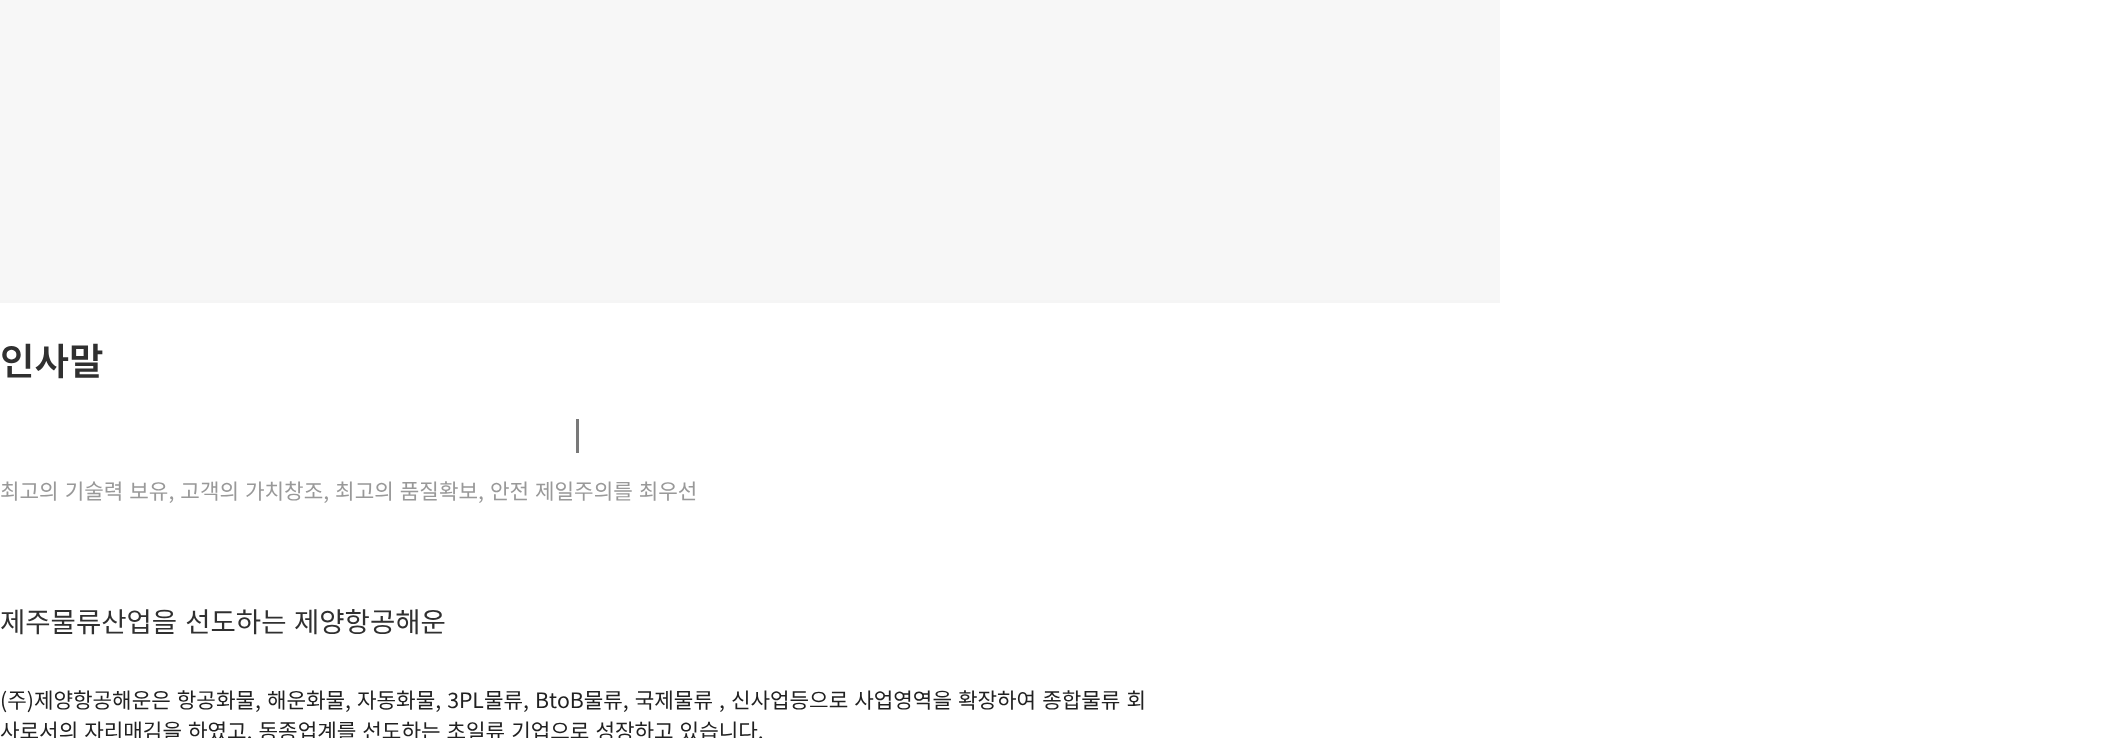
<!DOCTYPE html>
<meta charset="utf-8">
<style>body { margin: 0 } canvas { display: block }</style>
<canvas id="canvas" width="2115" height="738"></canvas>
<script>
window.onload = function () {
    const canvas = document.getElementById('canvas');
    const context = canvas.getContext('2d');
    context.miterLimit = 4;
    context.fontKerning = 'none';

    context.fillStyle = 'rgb(255, 255, 255)';
    context.fillRect(0, 0, 2115, 738);
    context.fillStyle = 'rgb(247, 247, 247)';
    context.fillRect(0, 0, 1500, 300);
    context.fillStyle = 'rgb(245, 245, 245)';
    context.fillRect(0, 300, 1500, 3);
    context.fillStyle = 'rgb(121, 121, 121)';
    context.fillRect(576, 419, 3, 34);
    context.font = '600 37.5px Noto Sans KR';
    context.fillStyle = 'rgb(48, 48, 48)';
    context.fillText('인사말', 0, 375);
    context.wordSpacing = '1.25px';
    context.font = '21.25px Noto Sans KR';
    context.fillStyle = 'rgb(153, 153, 153)';
    context.fillText('최고의 기술력 보유, 고객의 가치창조, 최고의 품질확보, 안전 제일주의를 최우선', 0, 499);
    context.wordSpacing = '2px';
    context.font = '27.5px Noto Sans KR';
    context.fillStyle = 'rgb(48, 48, 48)';
    context.fillText('제주물류산업을 선도하는', 0, 632);
    context.wordSpacing = '0px';
    context.fillText('제양항공해운', 294, 632);
    context.wordSpacing = '1.25px';
    context.font = '21.25px Noto Sans KR';
    context.fillStyle = 'rgb(33, 33, 33)';
    context.fillText('(주)제양항공해운은 항공화물, 해운화물, 자동화물, 3PL물류, BtoB물류, 국제물류 , 신사업등으로 사업영역을 확장하여 종합물류 회', 0, 708);
    context.fillText('사로서의 자리매김을 하였고, 동종업계를 선도하는 초일류 기업으로 성장하고 있습니다.', 0, 739);
};
</script>
